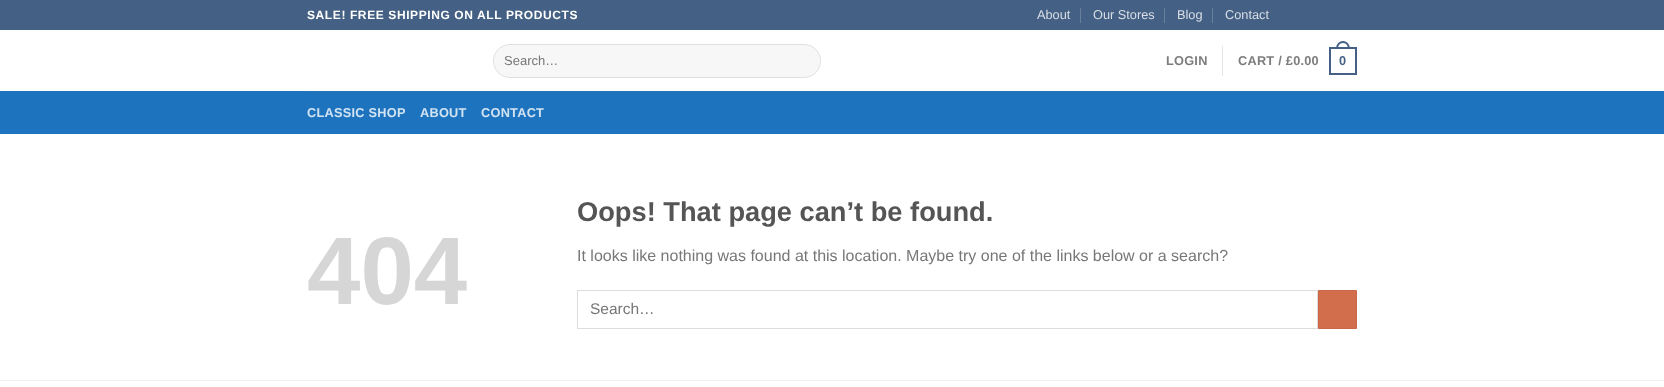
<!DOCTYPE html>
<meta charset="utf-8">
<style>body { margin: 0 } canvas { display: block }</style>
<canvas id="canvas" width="1664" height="387"></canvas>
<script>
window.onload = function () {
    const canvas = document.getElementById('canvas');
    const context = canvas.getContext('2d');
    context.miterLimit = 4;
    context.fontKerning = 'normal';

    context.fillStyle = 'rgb(255, 255, 255)';
    context.fillRect(0, 0, 1664, 387);
    context.fillStyle = 'rgb(68, 96, 132)';
    context.fillRect(0, 0, 1664, 30);
    context.fillStyle = 'rgb(105, 128, 157)';
    context.fillRect(1080, 8, 1, 15);
    context.fillRect(1164, 8, 1, 15);
    context.fillRect(1212, 8, 1, 15);
    context.fillStyle = 'rgb(247, 247, 247)';
    context.beginPath();
    context.roundRect(493, 44, 328, 34, 17);
    context.fill();
    context.beginPath();
    context.roundRect(493.5, 44.5, 327, 33, 16.5);
    context.strokeStyle = 'rgba(0, 0, 0, 0.09)';
    context.stroke();
    context.fillStyle = 'rgb(230, 230, 230)';
    context.fillRect(1222, 46, 1, 30);
    context.strokeStyle = 'rgb(68, 96, 132)';
    context.lineWidth = 2;
    context.strokeRect(1330, 48, 26, 26);
    context.fillStyle = 'rgb(68, 96, 132)';
    context.beginPath();
    context.moveTo(1343, 41);
    context.bezierCurveTo(1347.5, 41, 1350, 45, 1350, 49);
    context.lineTo(1336, 49);
    context.bezierCurveTo(1336, 45, 1338.5, 41, 1343, 41);
    context.closePath();
    context.moveTo(1343, 43);
    context.bezierCurveTo(1346.5, 43, 1348, 46, 1348, 49);
    context.lineTo(1338, 49);
    context.bezierCurveTo(1338, 46, 1339.5, 43, 1343, 43);
    context.closePath();
    context.fill('evenodd');
    context.fillStyle = 'rgb(30, 115, 190)';
    context.fillRect(0, 91, 1664, 43);
    context.fillStyle = 'rgb(39, 115, 183)';
    context.fillRect(307, 91, 1050, 1);
    context.strokeStyle = 'rgb(221, 221, 221)';
    context.lineWidth = 1;
    context.strokeRect(577.5, 290.5, 740, 38);
    context.fillStyle = 'rgb(210, 110, 75)';
    context.beginPath();
    context.rect(1318.5, 290.5, 38, 38);
    context.fill();
    context.strokeStyle = 'rgb(200, 105, 71)';
    context.stroke();
    context.fillStyle = 'rgb(242, 242, 242)';
    context.fillRect(0, 380, 1664, 1);
    context.letterSpacing = '0.6px';
    context.font = 'bold 12px Liberation Sans';
    context.fillStyle = 'rgb(255, 255, 255)';
    context.fillText('SALE! FREE SHIPPING ON ALL PRODUCTS', 307, 19);
    context.letterSpacing = '0px';
    context.font = '12.75px Liberation Sans';
    context.fillStyle = 'rgb(218, 223, 230)';
    context.fillText('About', 1037, 19);
    context.fillText('Our Stores', 1093, 19);
    context.fillText('Blog', 1177, 19);
    context.fillText('Contact', 1225, 19);
    context.font = '13px Liberation Sans';
    context.fillStyle = 'rgb(119, 119, 119)';
    context.fillText('Search…', 504, 65);
    context.letterSpacing = '0.25px';
    context.font = 'bold 12.75px Liberation Sans';
    context.fillStyle = 'rgb(125, 125, 125)';
    context.fillText('LOGIN', 1166, 65);
    context.fillText('CART / £0.00', 1238, 65);
    context.fillStyle = 'rgb(68, 96, 132)';
    context.fillText('0', 1339, 65);
    context.fillStyle = 'rgb(210, 227, 242)';
    context.fillText('CLASSIC SHOP', 307, 117);
    context.fillText('ABOUT', 420, 117);
    context.fillText('CONTACT', 481, 117);
    context.letterSpacing = '0px';
    context.font = 'bold 96px Liberation Sans';
    context.fillStyle = 'rgb(214, 214, 214)';
    context.fillText('404', 307, 304);
    context.font = 'bold 27.25px Liberation Sans';
    context.fillStyle = 'rgb(85, 85, 85)';
    context.fillText('Oops! That page can’t be found.', 577, 221);
    context.font = '16px Liberation Sans';
    context.fillStyle = 'rgb(119, 119, 119)';
    context.fillText('It looks like nothing was found at this location. Maybe try one of the links below or a search?', 577, 261);
    context.font = '15.5px Liberation Sans';
    context.fillText('Search…', 590, 314);
};
</script>
